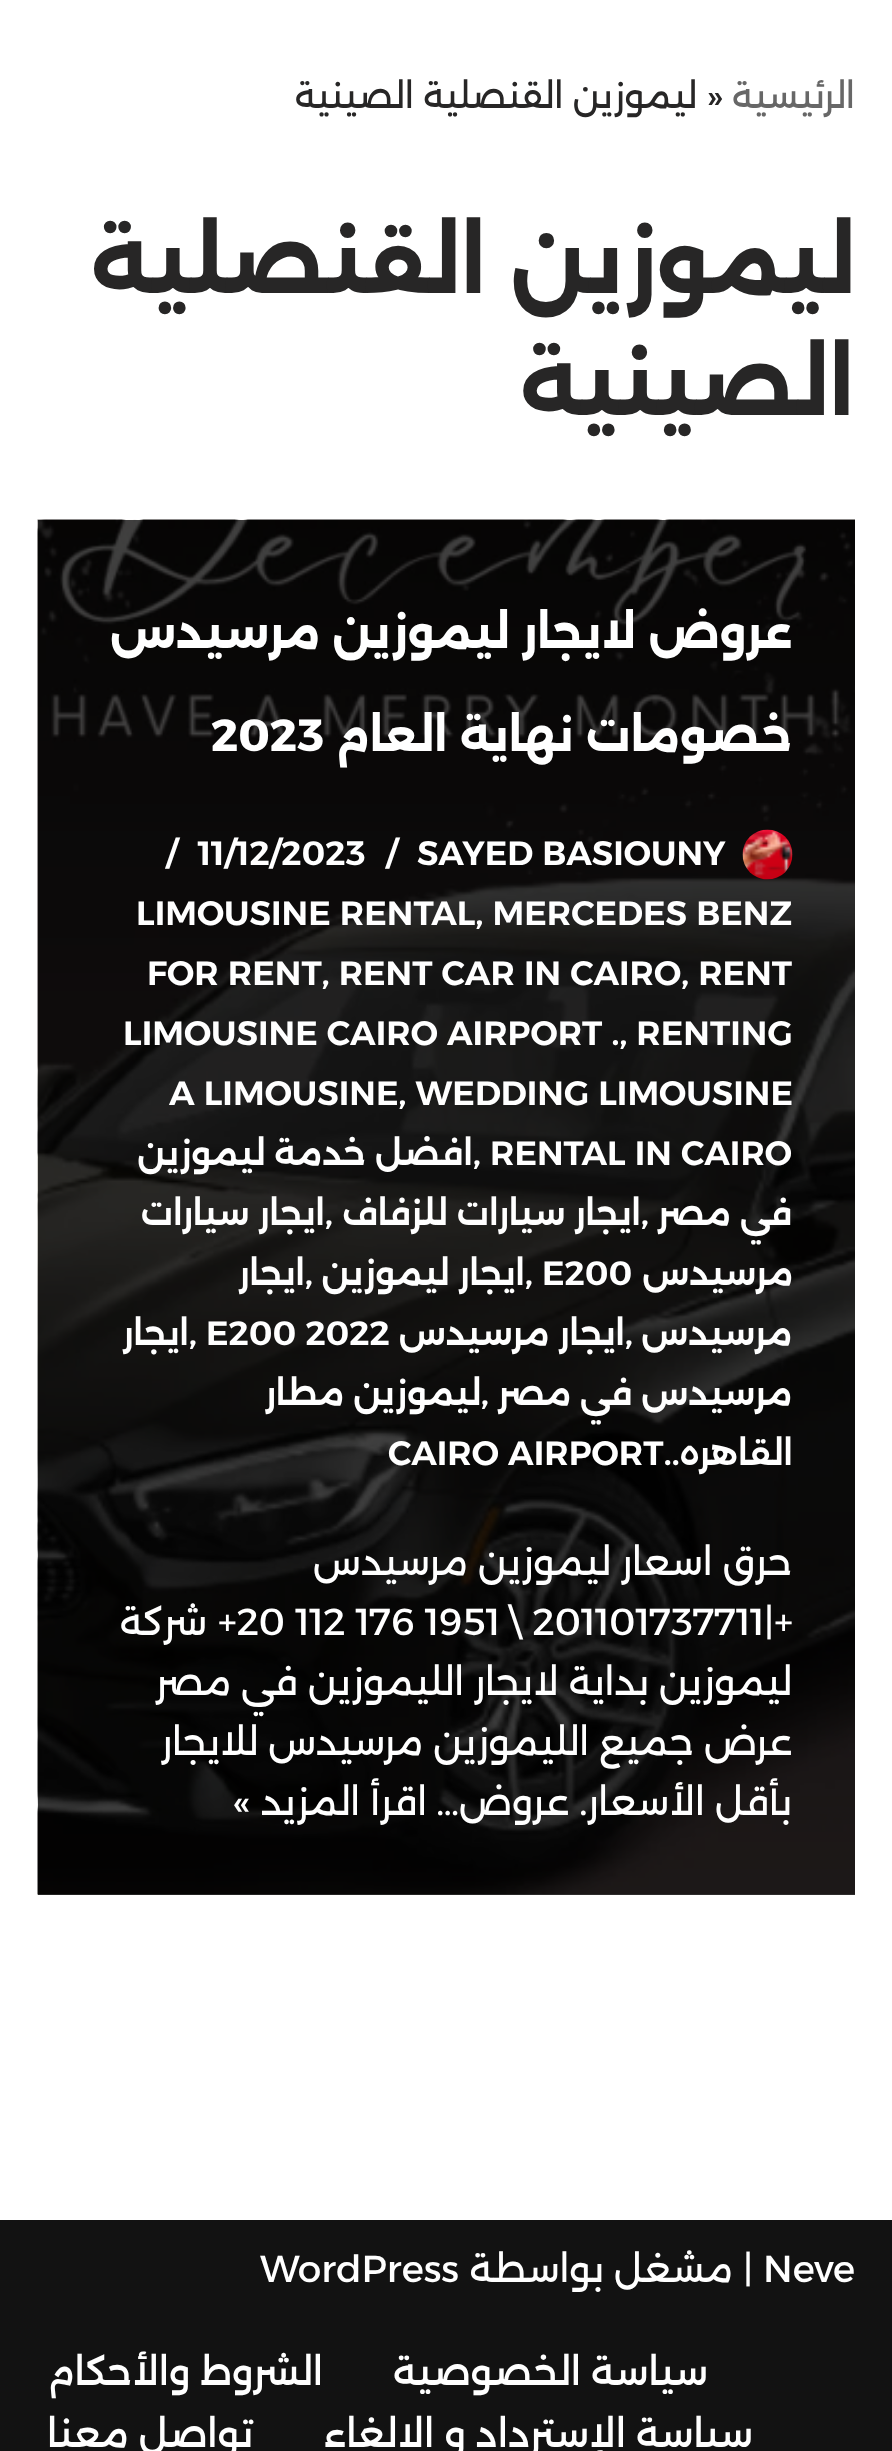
<!DOCTYPE html>
<meta charset="utf-8">
<style>body { margin: 0 } canvas { display: block }</style>
<canvas id="canvas" width="892" height="2451"></canvas>
<img id="img1" src="images/1.png" hidden>
<img id="img2" src="images/2.png" hidden>
<script>
window.onload = function () {
    const canvas = document.getElementById('canvas');
    const context = canvas.getContext('2d');
    context.miterLimit = 4;
    context.fontKerning = 'normal';

    context.fillStyle = 'rgb(255, 255, 255)';
    context.fillRect(0, 0, 892, 2451);
    context.fillStyle = 'rgb(64, 64, 64)';
    context.fillRect(38, 1894, 817, 1);
    context.drawImage(document.getElementById('img1'), 37, 519, 818, 1376);
    context.drawImage(document.getElementById('img2'), 742, 829, 51, 51);
    context.fillStyle = 'rgb(18, 18, 18)';
    context.fillRect(0, 2220, 892, 231);
    context.direction = 'rtl';
    context.font = '35px Alexandria';
    context.fillStyle = 'rgb(103, 103, 103)';
    context.fillText('الرئيسية', 855, 108);
    context.direction = 'ltr';
    context.fillStyle = 'rgb(39, 38, 38)';
    context.fillText('»', 707, 108);
    context.direction = 'rtl';
    context.fillText('ليموزين القنصلية الصينية', 697, 108);
    context.font = 'bold 87.5px Alexandria';
    context.fillText('ليموزين القنصلية', 855, 293);
    context.fillText('الصينية', 855, 415);
    context.font = 'bold 45px Alexandria';
    context.fillStyle = 'rgb(255, 255, 255)';
    context.fillText('عروض لايجار ليموزين مرسيدس', 792, 648);
    context.fillText('خصومات نهاية العام', 792, 751);
    context.direction = 'ltr';
    context.fillText('2023', 211, 751);
    context.font = '600 33.75px Alexandria';
    context.fillText('SAYED BASIOUNY', 417, 865);
    context.fillText('/', 386, 865);
    context.fillText('11/12/2023', 198, 865);
    context.fillText('/', 166, 865);
    context.fillText('LIMOUSINE RENTAL, MERCEDES BENZ', 136, 925);
    context.fillText('FOR RENT, RENT CAR IN CAIRO, RENT', 147, 985);
    context.fillText('LIMOUSINE CAIRO AIRPORT ., RENTING', 123, 1045);
    context.fillText('A LIMOUSINE, WEDDING LIMOUSINE', 169, 1105);
    context.fillText('RENTAL IN CAIRO', 490, 1165);
    context.fillText(',', 473, 1165);
    context.direction = 'rtl';
    context.fillText('افضل خدمة ليموزين', 473, 1165);
    context.fillText('في مصر', 792, 1225);
    context.direction = 'ltr';
    context.fillText(',', 641, 1225);
    context.direction = 'rtl';
    context.fillText('ايجار سيارات للزفاف', 641, 1225);
    context.direction = 'ltr';
    context.fillText(',', 325, 1225);
    context.direction = 'rtl';
    context.fillText('ايجار سيارات', 325, 1225);
    context.fillText('مرسيدس', 793, 1285);
    context.direction = 'ltr';
    context.fillText('E200', 542, 1285);
    context.fillText(',', 525, 1285);
    context.direction = 'rtl';
    context.fillText('ايجار ليموزين', 525, 1285);
    context.direction = 'ltr';
    context.fillText(',', 305, 1285);
    context.direction = 'rtl';
    context.fillText('ايجار', 305, 1285);
    context.fillText('مرسيدس', 792, 1345);
    context.direction = 'ltr';
    context.fillText(',', 625, 1345);
    context.direction = 'rtl';
    context.fillText('ايجار مرسيدس', 625, 1345);
    context.direction = 'ltr';
    context.fillText('E200 2022', 206, 1345);
    context.fillText(',', 189, 1345);
    context.direction = 'rtl';
    context.fillText('ايجار', 189, 1345);
    context.fillText('مرسيدس في مصر', 792, 1405);
    context.direction = 'ltr';
    context.fillText(',', 481, 1405);
    context.direction = 'rtl';
    context.fillText('ليموزين مطار', 481, 1405);
    context.fillText('القاهره..', 793, 1465);
    context.direction = 'ltr';
    context.fillText('CAIRO AIRPORT', 388, 1465);
    context.direction = 'rtl';
    context.font = '37.5px Alexandria';
    context.fillText('حرق اسعار ليموزين مرسيدس', 792, 1575);
    context.direction = 'ltr';
    context.fillText('+20 112 176 1951 \\ 201101737711|+', 218, 1635);
    context.direction = 'rtl';
    context.fillText('شركة', 207, 1635);
    context.fillText('ليموزين بداية لايجار الليموزين في مصر', 792, 1695);
    context.fillText('عرض جميع الليموزين مرسيدس للايجار', 792, 1755);
    context.fillText('بأقل الأسعار. عروض…', 792, 1815);
    context.fillText('اقرأ المزيد »', 427, 1815);
    context.direction = 'ltr';
    context.fillText('Neve', 763, 2282);
    context.direction = 'rtl';
    context.fillText('| مشغل بواسطة', 753, 2282);
    context.direction = 'ltr';
    context.fillText('WordPress', 260, 2282);
    context.direction = 'rtl';
    context.font = '500 37.5px Alexandria';
    context.fillText('سياسة الخصوصية', 708, 2385);
    context.fillText('الشروط والأحكام', 323, 2385);
    context.fillText('سياسة الإسترداد و الالغاء', 753, 2447);
    context.fillText('تواصل معنا', 253, 2447);
};
</script>
